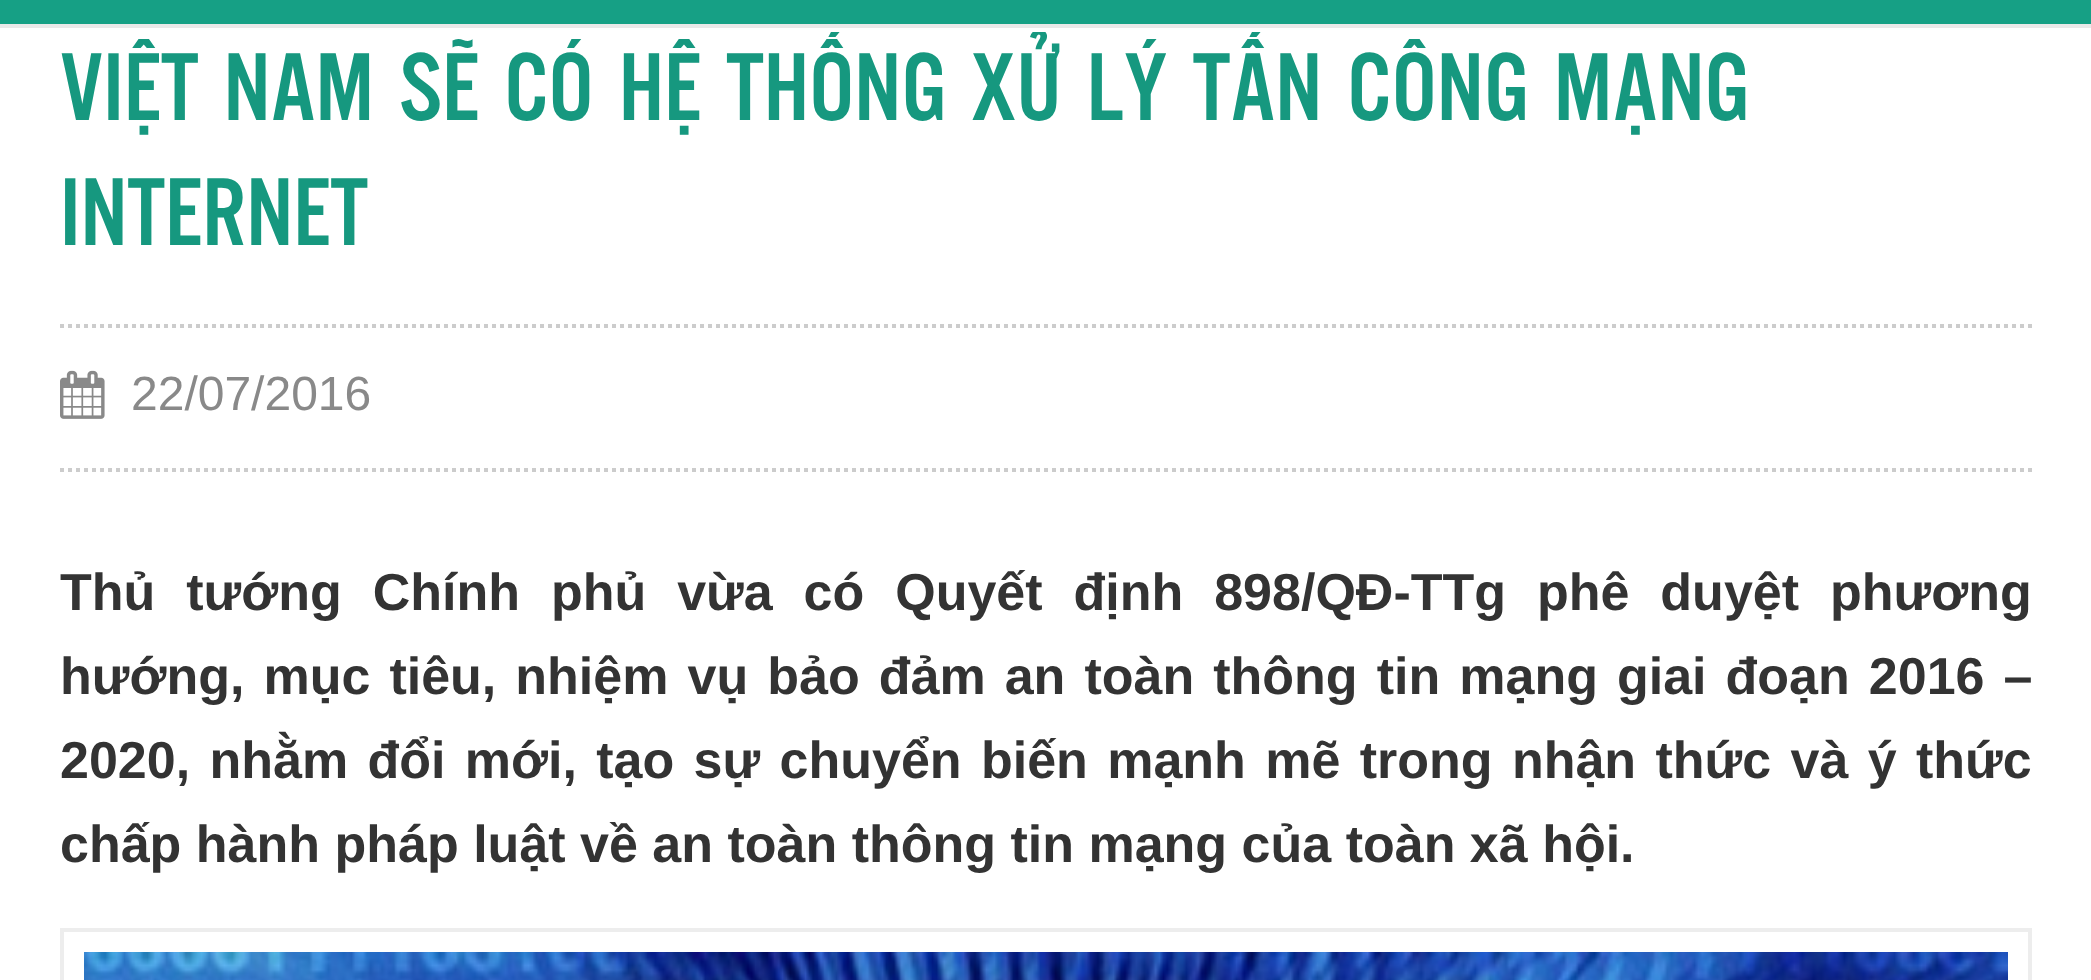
<!DOCTYPE html>
<meta charset="utf-8">
<style>body { margin: 0 } canvas { display: block }</style>
<canvas id="canvas" width="2091" height="980"></canvas>
<img id="img1" src="images/1.png" hidden>
<img id="img2" src="images/2.png" hidden>
<script>
window.onload = function () {
    const canvas = document.getElementById('canvas');
    const context = canvas.getContext('2d');
    context.miterLimit = 4;
    context.fontKerning = 'normal';

    context.fillStyle = 'rgb(255, 255, 255)';
    context.fillRect(0, 0, 2091, 980);
    context.fillStyle = 'rgb(22, 160, 133)';
    context.fillRect(0, 0, 2091, 24);
    context.fillStyle = 'rgb(233, 233, 233)';
    context.fillRect(0, 24, 2091, 4);
    context.beginPath();
    context.moveTo(60, 326);
    context.lineTo(2032, 326);
    context.strokeStyle = 'rgb(204, 204, 204)';
    context.lineWidth = 4;
    context.setLineDash([4, 4]);
    context.stroke();
    context.beginPath();
    context.moveTo(60, 470);
    context.lineTo(2032, 470);
    context.stroke();
    context.drawImage(document.getElementById('img1'), 60, 370, 45, 49);
    context.strokeStyle = 'rgb(237, 237, 237)';
    context.setLineDash([]);
    context.strokeRect(62, 930, 1968, 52);
    context.drawImage(document.getElementById('img2'), 84, 952, 1924, 28);
    context.save();
    context.beginPath();
    context.rect(0, 32, 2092, 948);
    context.clip();
    context.font = '100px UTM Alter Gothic';
    context.fillStyle = 'rgb(22, 152, 127)';
    context.fillText('VIỆT NAM SẼ CÓ HỆ THỐNG XỬ LÝ TẤN CÔNG MẠNG', 60, 120);
    context.restore();
    context.font = '100px UTM Alter Gothic';
    context.fillStyle = 'rgb(22, 152, 127)';
    context.fillText('INTERNET', 60, 245);
    context.font = '48px Liberation Sans';
    context.fillStyle = 'rgb(137, 137, 137)';
    context.fillText('22/07/2016', 131, 410);
    context.wordSpacing = '16.5px';
    context.font = 'bold 52px Liberation Sans';
    context.fillStyle = 'rgb(51, 51, 51)';
    context.fillText('Thủ tướng Chính phủ vừa có Quyết định 898/QĐ-TTg phê duyệt phương', 60, 610);
    context.wordSpacing = '4.6px';
    context.fillText('hướng, mục tiêu, nhiệm vụ bảo đảm an toàn thông tin mạng giai đoạn 2016 –', 60, 694);
    context.wordSpacing = '4.9px';
    context.fillText('2020, nhằm đổi mới, tạo sự chuyển biến mạnh mẽ trong nhận thức và ý thức', 60, 778);
    context.wordSpacing = '0px';
    context.fillText('chấp hành pháp luật về an toàn thông tin mạng của toàn xã hội.', 60, 862);
};
</script>
